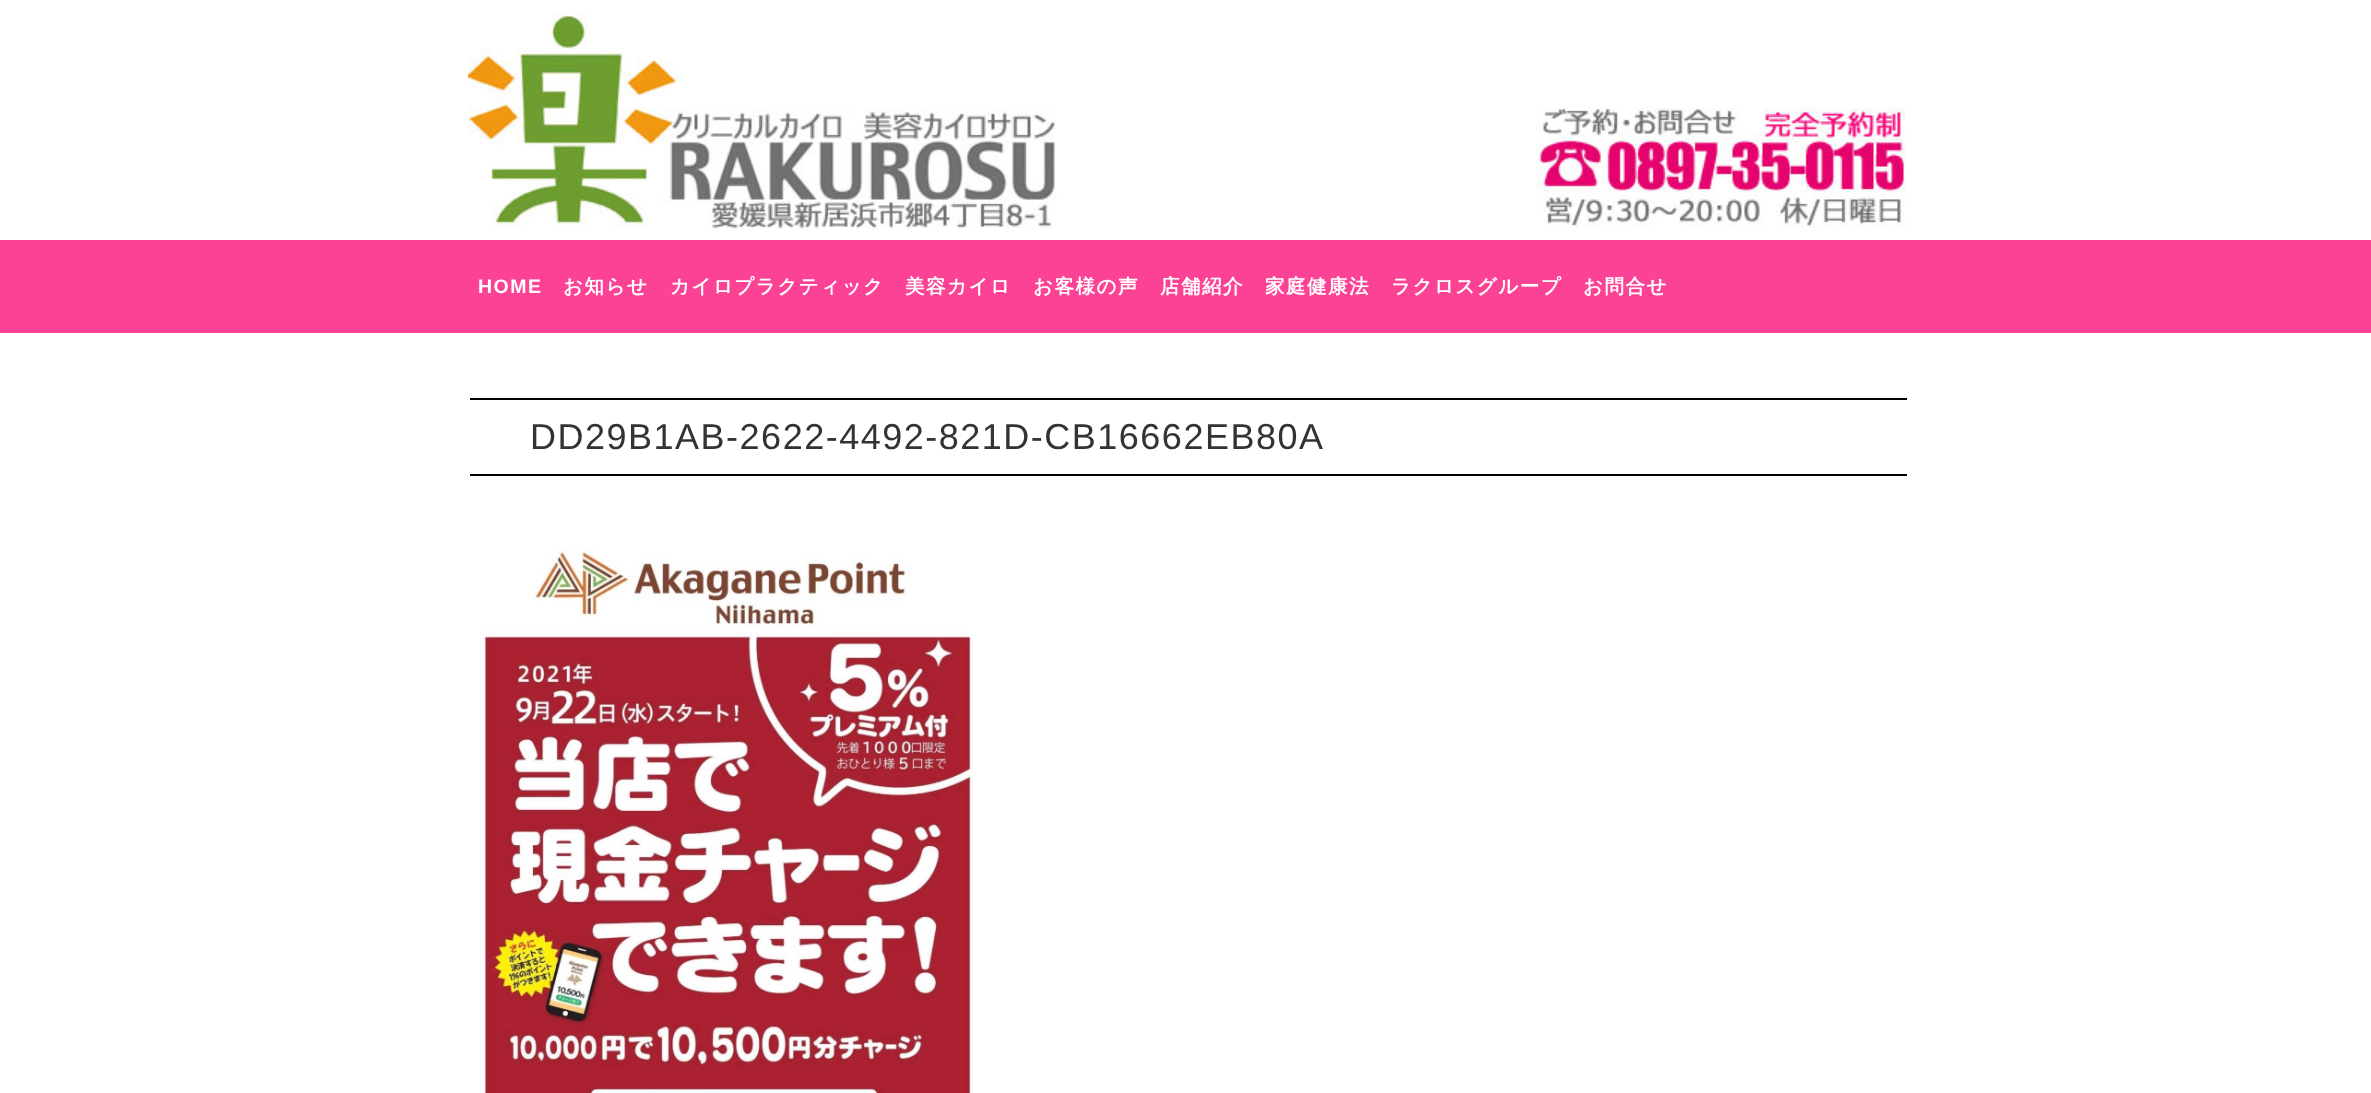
<!DOCTYPE html>
<meta charset="utf-8">
<style>body { margin: 0 } canvas { display: block }</style>
<canvas id="canvas" width="2371" height="1093"></canvas>
<img id="img1" src="images/1.png" hidden>
<img id="img2" src="images/2.png" hidden>
<script>
window.onload = function () {
    const canvas = document.getElementById('canvas');
    const context = canvas.getContext('2d');
    context.miterLimit = 4;
    context.fontKerning = 'normal';

    context.fillStyle = 'rgb(255, 255, 255)';
    context.fillRect(0, 0, 2371, 1093);
    context.drawImage(document.getElementById('img1'), 468, 12, 1437, 217);
    context.fillStyle = 'rgb(251, 66, 148)';
    context.fillRect(0, 240, 2371, 93);
    context.fillStyle = 'rgb(0, 0, 0)';
    context.fillRect(470, 398, 1437, 2);
    context.fillRect(470, 474, 1437, 2);
    context.drawImage(document.getElementById('img2'), 480, 550, 493, 543);
    context.letterSpacing = '1.5px';
    context.font = 'bold 19.5px Liberation Sans';
    context.fillStyle = 'rgb(255, 255, 255)';
    context.fillText('HOME', 478, 293);
    context.font = 'bold 19.5px WenQuanYi Zen Hei';
    context.fillText('お知らせ', 563, 293);
    context.fillText('カイロプラクティック', 670, 293);
    context.fillText('美容カイロ', 905, 293);
    context.fillText('お客様の声', 1033, 293);
    context.fillText('店舗紹介', 1160, 293);
    context.fillText('家庭健康法', 1265, 293);
    context.fillText('ラクロスグループ', 1391, 293);
    context.fillText('お問合せ', 1583, 293);
    context.font = '36px Liberation Sans';
    context.fillStyle = 'rgb(51, 51, 51)';
    context.fillText('DD29B1AB-2622-4492-821D-CB16662EB80A', 530, 449);
};
</script>
